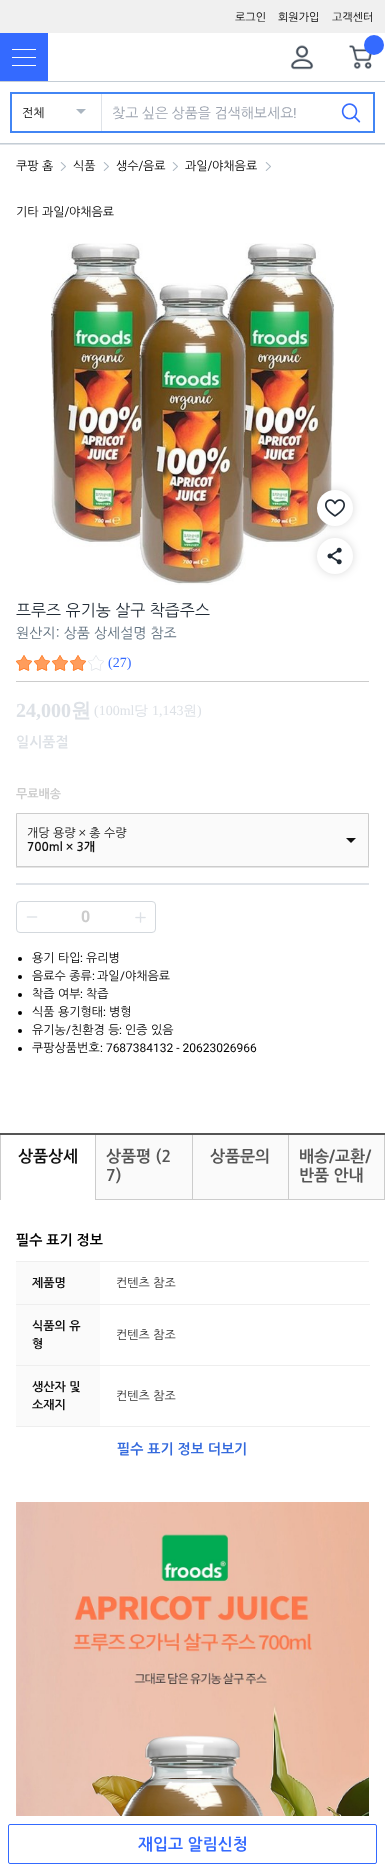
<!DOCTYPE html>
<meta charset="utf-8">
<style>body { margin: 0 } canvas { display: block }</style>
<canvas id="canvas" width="385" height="1872"></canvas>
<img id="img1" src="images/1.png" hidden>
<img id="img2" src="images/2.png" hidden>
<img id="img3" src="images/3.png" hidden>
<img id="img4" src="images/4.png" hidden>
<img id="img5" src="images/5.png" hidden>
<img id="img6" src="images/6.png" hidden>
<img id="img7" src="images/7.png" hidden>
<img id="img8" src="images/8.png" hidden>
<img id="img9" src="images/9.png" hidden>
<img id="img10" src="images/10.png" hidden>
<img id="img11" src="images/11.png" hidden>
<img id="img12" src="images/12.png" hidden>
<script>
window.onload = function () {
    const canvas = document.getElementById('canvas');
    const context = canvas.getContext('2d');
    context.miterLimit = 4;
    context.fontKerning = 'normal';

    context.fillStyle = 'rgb(255, 255, 255)';
    context.fillRect(0, 0, 385, 1872);
    context.fillStyle = 'rgb(240, 240, 240)';
    context.fillRect(0, 0, 385, 33);
    context.fillStyle = 'rgb(52, 106, 255)';
    context.fillRect(0, 33, 48, 48);
    context.fillStyle = 'rgb(255, 255, 255)';
    context.fillRect(12, 49, 24, 1);
    context.fillRect(12, 57, 24, 1);
    context.fillRect(12, 65, 24, 1);
    context.drawImage(document.getElementById('img1'), 290, 45, 24, 25);
    context.drawImage(document.getElementById('img2'), 349, 45, 23, 24);
    context.fillStyle = 'rgb(52, 106, 255)';
    context.beginPath();
    context.arc(374, 45, 10, 0, 2 * Math.PI);
    context.fill();
    context.fillStyle = 'rgb(196, 205, 213)';
    context.fillRect(0, 81, 385, 1);
    context.fillRect(0, 143, 385, 1);
    context.strokeStyle = 'rgb(66, 133, 244)';
    context.lineWidth = 2;
    context.strokeRect(11, 93, 363, 39);
    context.fillStyle = 'rgb(223, 227, 232)';
    context.fillRect(101, 94, 1, 37);
    context.fillStyle = 'rgb(170, 181, 192)';
    context.beginPath();
    context.moveTo(76, 109);
    context.lineTo(86, 109);
    context.lineTo(81, 114);
    context.closePath();
    context.fill();
    context.drawImage(document.getElementById('img3'), 341, 103, 20, 20);
    context.fillStyle = 'rgb(223, 227, 232)';
    context.fillRect(0, 144, 385, 1);
    context.drawImage(document.getElementById('img4'), 60, 162, 6, 9);
    context.drawImage(document.getElementById('img4'), 103, 162, 6, 9);
    context.drawImage(document.getElementById('img4'), 172, 162, 6, 9);
    context.drawImage(document.getElementById('img4'), 265, 162, 6, 9);
    context.drawImage(document.getElementById('img5'), 51, 243, 284, 342);
    context.fillStyle = 'rgba(0, 0, 0, 0.15)';
    context.filter = 'blur(4px)';
    context.beginPath();
    context.roundRect(317, 490, 36, 36, 18);
    context.fill();
    context.filter = 'none';
    context.fillStyle = 'rgb(255, 255, 255)';
    context.beginPath();
    context.arc(335, 508, 18, 0, 2 * Math.PI);
    context.fill();
    context.drawImage(document.getElementById('img6'), 325, 499, 20, 18);
    context.fillStyle = 'rgba(0, 0, 0, 0.15)';
    context.filter = 'blur(4px)';
    context.beginPath();
    context.roundRect(317, 538, 36, 36, 18);
    context.fill();
    context.filter = 'none';
    context.fillStyle = 'rgb(255, 255, 255)';
    context.beginPath();
    context.arc(335, 556, 18, 0, 2 * Math.PI);
    context.fill();
    context.drawImage(document.getElementById('img7'), 327, 547, 15, 18);
    context.drawImage(document.getElementById('img8'), 16, 655, 16, 16);
    context.drawImage(document.getElementById('img8'), 34, 655, 16, 16);
    context.drawImage(document.getElementById('img8'), 52, 655, 16, 16);
    context.drawImage(document.getElementById('img8'), 70, 655, 16, 16);
    context.drawImage(document.getElementById('img9'), 88, 655, 16, 16);
    context.fillStyle = 'rgb(204, 204, 204)';
    context.fillRect(16, 681, 353, 1);
    context.fillStyle = 'rgba(0, 0, 0, 0.1)';
    context.filter = 'blur(0.5px)';
    context.beginPath();
    context.rect(16, 814, 353, 54);
    context.fill();
    context.filter = 'none';
    context.fillStyle = 'rgb(250, 250, 250)';
    context.beginPath();
    context.rect(16.5, 813.5, 352, 53);
    context.fill();
    context.strokeStyle = 'rgb(204, 204, 204)';
    context.lineWidth = 1;
    context.stroke();
    context.fillStyle = 'rgb(17, 17, 17)';
    context.beginPath();
    context.moveTo(346, 838);
    context.lineTo(356, 838);
    context.lineTo(351, 843);
    context.closePath();
    context.fill();
    context.fillStyle = 'rgb(223, 227, 232)';
    context.fillRect(16, 883, 353, 2);
    context.beginPath();
    context.roundRect(16.5, 901.5, 139, 31, 3.5);
    context.strokeStyle = 'rgb(211, 216, 221)';
    context.stroke();
    context.drawImage(document.getElementById('img10'), 26, 916, 12, 2);
    context.drawImage(document.getElementById('img11'), 135, 912, 11, 11);
    context.beginPath();
    context.roundRect(8.5, 1824.5, 368, 39, 1.5);
    context.strokeStyle = 'rgb(52, 106, 255)';
    context.stroke();
    context.fillStyle = 'rgb(0, 0, 0)';
    context.beginPath();
    context.arc(20, 959, 2, 0, 2 * Math.PI);
    context.fill();
    context.beginPath();
    context.arc(20, 977, 2, 0, 2 * Math.PI);
    context.fill();
    context.beginPath();
    context.arc(20, 995, 2, 0, 2 * Math.PI);
    context.fill();
    context.beginPath();
    context.arc(20, 1013, 2, 0, 2 * Math.PI);
    context.fill();
    context.beginPath();
    context.arc(20, 1031, 2, 0, 2 * Math.PI);
    context.fill();
    context.beginPath();
    context.arc(20, 1049, 2, 0, 2 * Math.PI);
    context.fill();
    context.fillStyle = 'rgb(85, 85, 85)';
    context.fillRect(0, 1133, 385, 2);
    context.fillStyle = 'rgb(204, 204, 204)';
    context.fillRect(95, 1135, 1, 65);
    context.fillRect(0, 1135, 1, 65);
    context.fillStyle = 'rgb(250, 250, 250)';
    context.fillRect(96, 1135, 96, 64);
    context.fillStyle = 'rgb(204, 204, 204)';
    context.fillRect(192, 1135, 1, 65);
    context.fillRect(96, 1199, 97, 1);
    context.fillStyle = 'rgb(250, 250, 250)';
    context.fillRect(193, 1135, 95, 64);
    context.fillStyle = 'rgb(204, 204, 204)';
    context.fillRect(288, 1135, 1, 65);
    context.fillRect(193, 1199, 96, 1);
    context.fillStyle = 'rgb(250, 250, 250)';
    context.fillRect(289, 1135, 95, 64);
    context.fillStyle = 'rgb(204, 204, 204)';
    context.fillRect(384, 1135, 1, 65);
    context.fillRect(289, 1199, 96, 1);
    context.fillStyle = 'rgb(238, 238, 238)';
    context.fillRect(16, 1261, 353, 1);
    context.fillRect(16, 1426, 354, 1);
    context.fillStyle = 'rgb(250, 250, 250)';
    context.fillRect(16, 1262, 84, 42);
    context.fillStyle = 'rgb(238, 238, 238)';
    context.fillRect(16, 1304, 354, 1);
    context.fillStyle = 'rgb(250, 250, 250)';
    context.fillRect(16, 1305, 84, 60);
    context.fillStyle = 'rgb(238, 238, 238)';
    context.fillRect(16, 1365, 354, 1);
    context.fillStyle = 'rgb(250, 250, 250)';
    context.fillRect(16, 1366, 84, 60);
    context.drawImage(document.getElementById('img12'), 16, 1502, 353, 314);
    context.font = '11px NanumGothic';
    context.fillStyle = 'rgb(0, 0, 0)';
    context.fillText('로그인', 235, 21);
    context.fillText('회원가입', 278, 21);
    context.fillText('고객센터', 332, 21);
    context.font = '12px NanumGothic';
    context.fillText('전체', 22, 117);
    context.wordSpacing = '-0.5px';
    context.font = '14px NanumGothic';
    context.fillStyle = 'rgb(156, 163, 175)';
    context.fillText('찾고 싶은 상품을 검색해보세요', 112, 118);
    context.wordSpacing = '0px';
    context.font = '14px Roboto';
    context.fillText('!', 293, 118);
    context.font = '12px NanumGothic';
    context.fillStyle = 'rgb(0, 0, 0)';
    context.fillText('쿠팡 홈', 16, 170);
    context.fillText('식품', 73, 170);
    context.fillText('생수/음료', 116, 170);
    context.fillText('과일/야채음료', 185, 170);
    context.fillText('기타 과일/야채음료', 16, 216);
    context.font = '16px NanumGothic';
    context.fillStyle = 'rgb(33, 43, 54)';
    context.fillText('프루즈 유기농 살구 착즙주스', 16, 616);
    context.font = '14px NanumGothic';
    context.fillStyle = 'rgb(99, 115, 129)';
    context.fillText('원산지: 상품 상세설명 참조', 16, 638);
    context.font = '14px Liberation Serif';
    context.fillStyle = 'rgb(52, 106, 255)';
    context.fillText('(27)', 108, 667);
    context.font = 'bold 20px Liberation Serif';
    context.fillStyle = 'rgb(221, 225, 230)';
    context.fillText('24,000', 16, 717);
    context.font = 'bold 20px WenQuanYi Zen Hei';
    context.fillText('원', 71, 717);
    context.font = '14px Liberation Serif';
    context.fillText('(100ml', 94, 715);
    context.font = '500 14px WenQuanYi Zen Hei';
    context.fillText('당', 134, 715);
    context.font = '14px Liberation Serif';
    context.fillText('1,143', 152, 715);
    context.font = '500 14px WenQuanYi Zen Hei';
    context.fillText('원', 183, 715);
    context.font = '14px Liberation Serif';
    context.fillText(')', 197, 715);
    context.font = 'bold 14px NanumGothic';
    context.fillText('일시품절', 16, 747);
    context.font = 'bold 12px NanumGothic';
    context.fillStyle = 'rgb(204, 204, 204)';
    context.fillText('무료배송', 16, 798);
    context.font = '12px NanumGothic';
    context.fillStyle = 'rgb(17, 17, 17)';
    context.fillText('개당 용량 × 총 수량', 27, 837);
    context.font = 'bold 12px NanumGothic';
    context.fillText('700ml × 3개', 27, 851);
    context.font = 'bold 16px Roboto';
    context.fillStyle = 'rgb(204, 204, 204)';
    context.fillText('0', 81, 922);
    context.font = 'bold 16px NanumGothic';
    context.fillStyle = 'rgb(52, 106, 255)';
    context.fillText('재입고 알림신청', 138, 1850);
    context.font = '12px NanumGothic';
    context.fillStyle = 'rgb(0, 0, 0)';
    context.fillText('용기 타입', 32, 962);
    context.font = '12px Roboto';
    context.fillText(':', 80, 962);
    context.font = '12px NanumGothic';
    context.fillText('유리병', 86, 962);
    context.fillText('음료수 종류', 32, 980);
    context.font = '12px Roboto';
    context.fillText(':', 92, 980);
    context.font = '12px NanumGothic';
    context.fillText('과일', 97, 980);
    context.font = '12px Roboto';
    context.fillText('/', 120, 980);
    context.font = '12px NanumGothic';
    context.fillText('야채음료', 125, 980);
    context.fillText('착즙 여부', 32, 998);
    context.font = '12px Roboto';
    context.fillText(':', 80, 998);
    context.font = '12px NanumGothic';
    context.fillText('착즙', 86, 998);
    context.fillText('식품 용기형태', 32, 1016);
    context.font = '12px Roboto';
    context.fillText(':', 103, 1016);
    context.font = '12px NanumGothic';
    context.fillText('병형', 109, 1016);
    context.fillText('유기농', 32, 1034);
    context.font = '12px Roboto';
    context.fillText('/', 66, 1034);
    context.font = '12px NanumGothic';
    context.fillText('친환경 등', 71, 1034);
    context.font = '12px Roboto';
    context.fillText(':', 119, 1034);
    context.font = '12px NanumGothic';
    context.fillText('인증 있음', 125, 1034);
    context.fillText('쿠팡상품번호', 32, 1052);
    context.font = '12px Roboto';
    context.fillText(': 7687384132 - 20623026966', 100, 1052);
    context.font = 'bold 16px NanumGothic';
    context.fillStyle = 'rgb(17, 17, 17)';
    context.fillText('상품상세', 18, 1162);
    context.fillStyle = 'rgb(85, 85, 85)';
    context.fillText('상품평 (2', 106, 1162);
    context.fillText('7)', 106, 1181);
    context.fillText('상품문의', 210, 1162);
    context.fillText('배송/교환/', 299, 1162);
    context.fillText('반품 안내', 299, 1181);
    context.font = 'bold 14px NanumGothic';
    context.fillStyle = 'rgb(0, 0, 0)';
    context.fillText('필수 표기 정보', 16, 1245);
    context.font = 'bold 12px NanumGothic';
    context.fillStyle = 'rgb(17, 17, 17)';
    context.fillText('제품명', 32, 1287);
    context.font = '12px NanumGothic';
    context.fillStyle = 'rgb(51, 51, 51)';
    context.fillText('컨텐츠 참조', 116, 1287);
    context.font = 'bold 12px NanumGothic';
    context.fillStyle = 'rgb(17, 17, 17)';
    context.fillText('식품의 유', 32, 1330);
    context.fillText('형', 32, 1348);
    context.font = '12px NanumGothic';
    context.fillStyle = 'rgb(51, 51, 51)';
    context.fillText('컨텐츠 참조', 116, 1339);
    context.font = 'bold 12px NanumGothic';
    context.fillStyle = 'rgb(17, 17, 17)';
    context.fillText('생산자 및', 32, 1391);
    context.fillText('소재지', 32, 1409);
    context.font = '12px NanumGothic';
    context.fillStyle = 'rgb(51, 51, 51)';
    context.fillText('컨텐츠 참조', 116, 1400);
    context.font = 'bold 14px NanumGothic';
    context.fillStyle = 'rgb(52, 106, 221)';
    context.fillText('필수 표기 정보 더보기', 117, 1454);
};
</script>
